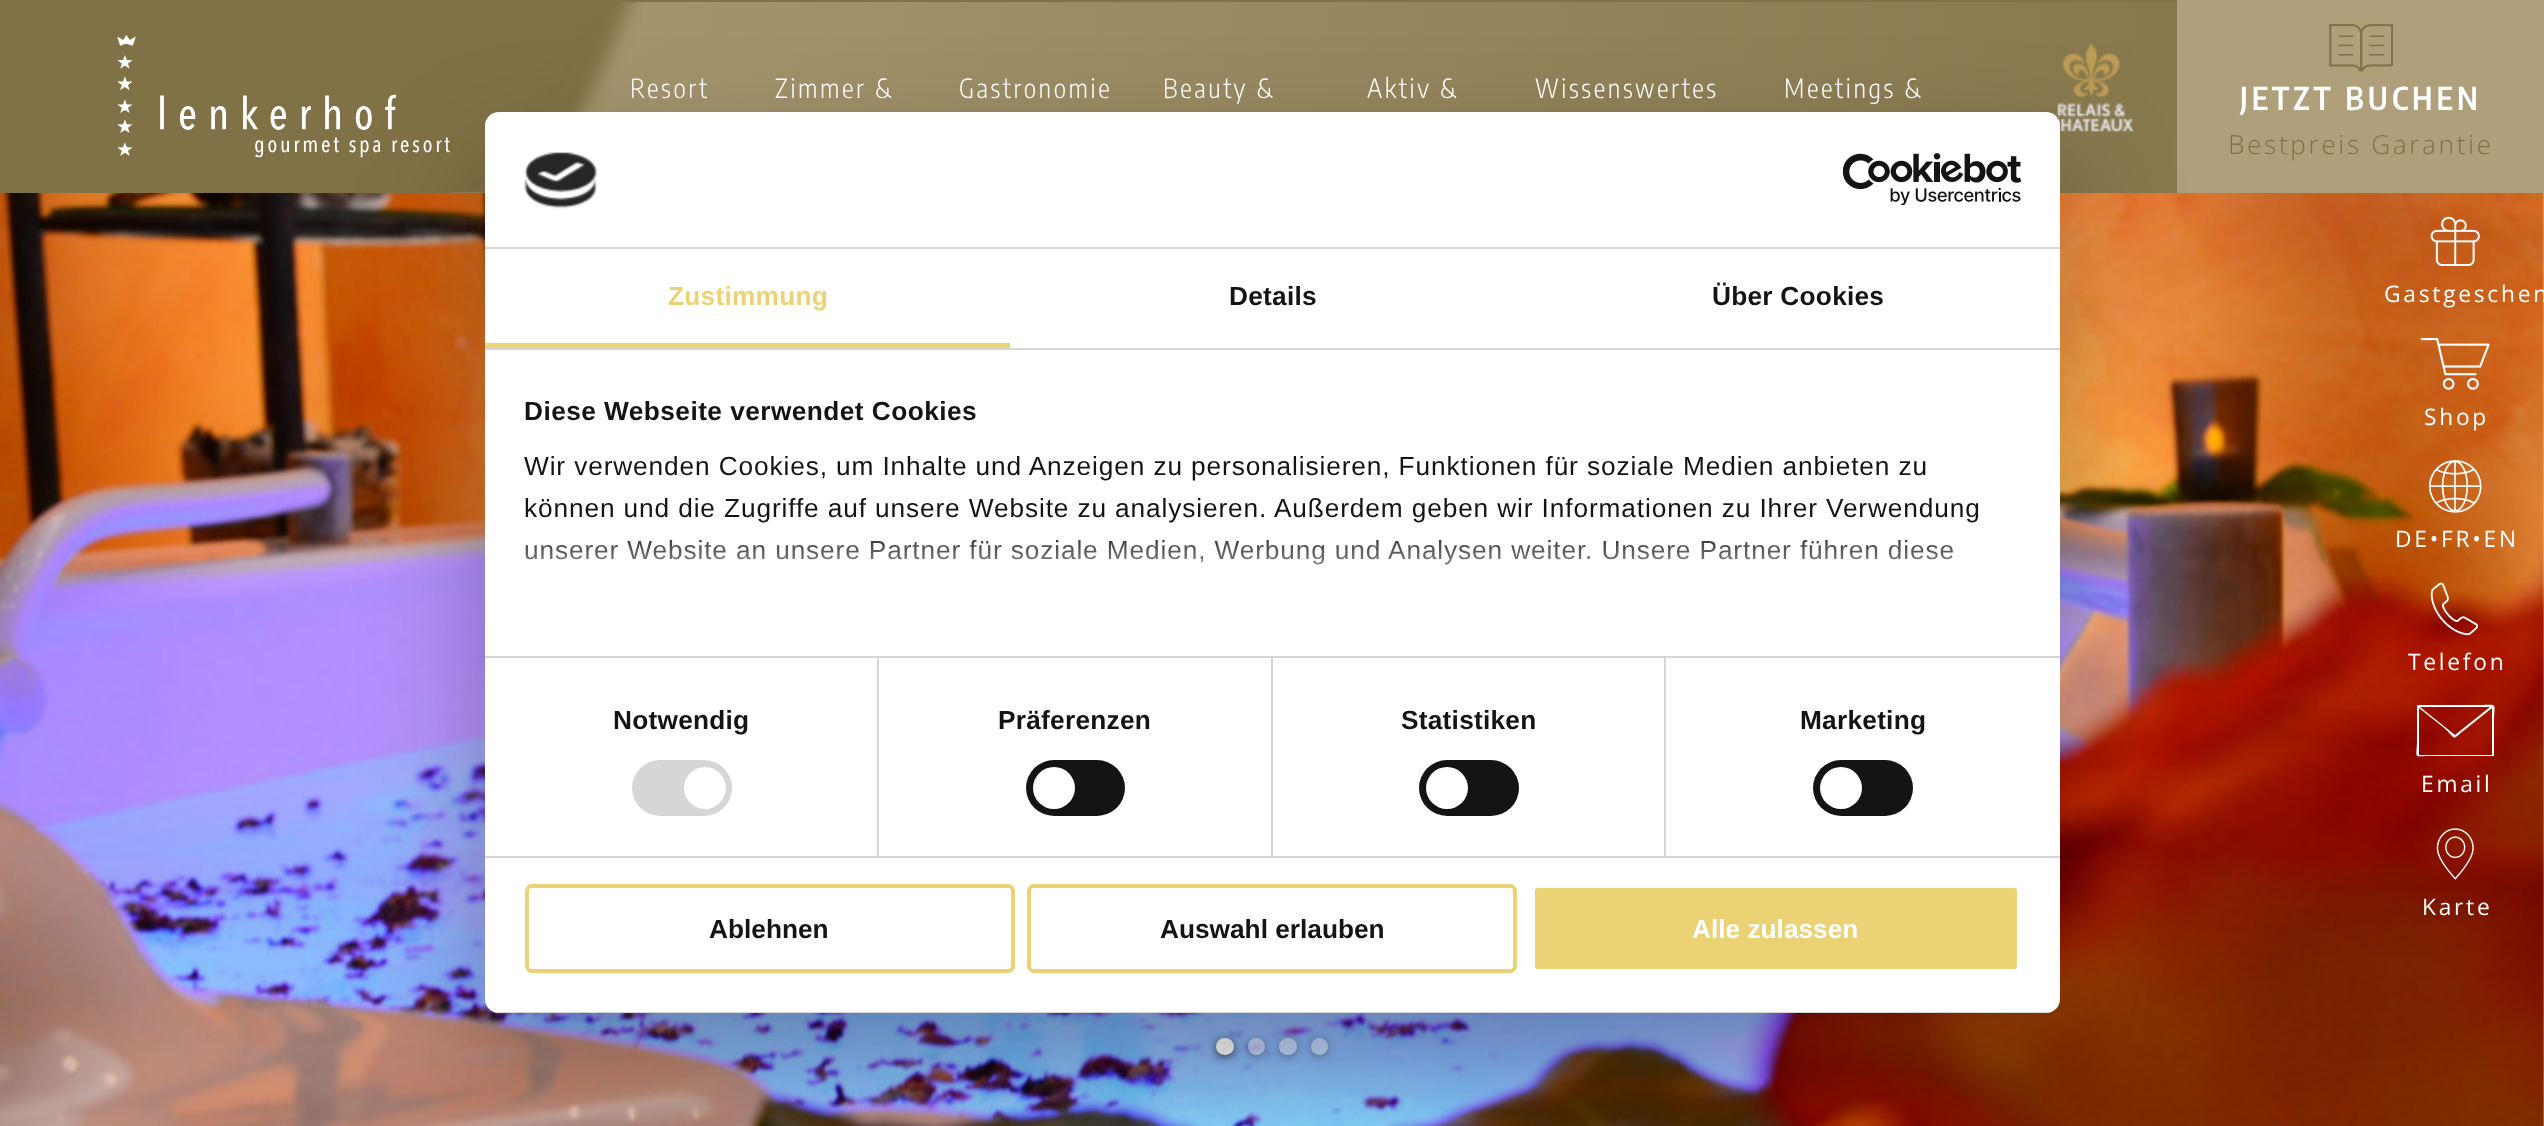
<!DOCTYPE html>
<meta charset="utf-8">
<style>body { margin: 0 } canvas { display: block }</style>
<canvas id="canvas" width="2544" height="1126"></canvas>
<img id="img1" src="images/1.png" hidden>
<img id="img2" src="images/3.png" hidden>
<img id="img3" src="images/10.png" hidden>
<img id="img4" src="images/4.png" hidden>
<img id="img5" src="images/5.png" hidden>
<img id="img6" src="images/6.png" hidden>
<img id="img7" src="images/7.png" hidden>
<img id="img8" src="images/8.png" hidden>
<img id="img9" src="images/9.png" hidden>
<img id="img10" src="images/2.png" hidden>
<img id="img11" src="images/11.png" hidden>
<img id="img12" src="images/12.png" hidden>
<script>
window.onload = function () {
    const canvas = document.getElementById('canvas');
    const context = canvas.getContext('2d');
    context.miterLimit = 4;
    context.fontKerning = 'normal';
    let gradient;

    context.fillStyle = 'rgb(255, 255, 255)';
    context.fillRect(0, 0, 2544, 1126);
    gradient = context.createLinearGradient(0, 96, 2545, 96);
    gradient.addColorStop(0, 'rgb(175, 160, 123)');
    gradient.addColorStop(1, 'rgb(129, 113, 70)');
    context.fillStyle = gradient;
    context.fillRect(450, 2, 1727, 191);
    context.drawImage(document.getElementById('img1'), 2056, 43, 78, 89);
    context.fillStyle = 'rgb(129, 113, 70)';
    context.fillRect(0, 0, 450, 193);
    context.drawImage(document.getElementById('img2'), 117, 35, 333, 123);
    context.fillRect(599, 0, 1578, 2);
    context.drawImage(document.getElementById('img3'), 0, 193, 2544, 933);
    context.drawImage(document.getElementById('img4'), 2430, 216, 50, 50);
    context.drawImage(document.getElementById('img5'), 2420, 338, 70, 52);
    context.drawImage(document.getElementById('img6'), 2429, 460, 53, 53);
    context.drawImage(document.getElementById('img7'), 2430, 582, 49, 54);
    context.fillStyle = 'rgb(255, 255, 255)';
    context.beginPath();
    context.moveTo(2418, 705);
    context.lineTo(2417, 706);
    context.lineTo(2417, 739);
    context.bezierCurveTo(2417, 760, 2412, 756, 2430, 756);
    context.lineTo(2493, 756);
    context.lineTo(2494, 756);
    context.lineTo(2494, 723);
    context.bezierCurveTo(2494, 702, 2499, 705, 2480, 705);
    context.closePath();
    context.moveTo(2420, 707);
    context.lineTo(2490, 707);
    context.lineTo(2455, 735);
    context.closePath();
    context.moveTo(2419, 708);
    context.lineTo(2443, 727);
    context.bezierCurveTo(2457, 739, 2451, 741, 2462, 732);
    context.lineTo(2492, 708);
    context.lineTo(2492, 755);
    context.lineTo(2419, 755);
    context.closePath();
    context.fill();
    context.drawImage(document.getElementById('img8'), 2436, 828, 38, 52);
    context.fillStyle = 'rgb(175, 160, 123)';
    context.fillRect(2177, 0, 367, 193);
    context.drawImage(document.getElementById('img9'), 2329, 24, 64, 48);
    context.fillStyle = 'rgba(0, 0, 0, 0.68)';
    context.filter = 'blur(5px)';
    context.beginPath();
    context.roundRect(1216, 1040, 18, 17, 8.5);
    context.fill();
    context.filter = 'none';
    context.fillStyle = 'rgb(255, 255, 255)';
    context.beginPath();
    context.roundRect(1216, 1038, 18, 17, 8.5);
    context.fill();
    context.save();
    context.beginPath();
    context.moveTo(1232, 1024);
    context.lineTo(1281, 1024);
    context.lineTo(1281, 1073);
    context.lineTo(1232, 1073);
    context.closePath();
    context.moveTo(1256.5, 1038);
    context.bezierCurveTo(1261, 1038, 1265, 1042, 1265, 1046.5);
    context.bezierCurveTo(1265, 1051, 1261, 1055, 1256.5, 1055);
    context.bezierCurveTo(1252, 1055, 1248, 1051, 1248, 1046.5);
    context.bezierCurveTo(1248, 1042, 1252, 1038, 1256.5, 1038);
    context.closePath();
    context.clip('evenodd');
    context.fillStyle = 'rgba(0, 0, 0, 0.32)';
    context.filter = 'blur(5px)';
    context.beginPath();
    context.roundRect(1248, 1040, 17, 17, 8.5);
    context.fill();
    context.filter = 'none';
    context.restore();
    context.fillStyle = 'rgba(255, 255, 255, 0.5)';
    context.beginPath();
    context.arc(1256.5, 1046.5, 8.5, 0, 2 * Math.PI);
    context.fill();
    context.save();
    context.beginPath();
    context.moveTo(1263, 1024);
    context.lineTo(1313, 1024);
    context.lineTo(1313, 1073);
    context.lineTo(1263, 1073);
    context.closePath();
    context.moveTo(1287.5, 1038);
    context.lineTo(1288.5, 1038);
    context.bezierCurveTo(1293, 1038, 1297, 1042, 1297, 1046.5);
    context.bezierCurveTo(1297, 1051, 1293, 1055, 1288.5, 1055);
    context.lineTo(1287.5, 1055);
    context.bezierCurveTo(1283, 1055, 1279, 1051, 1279, 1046.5);
    context.bezierCurveTo(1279, 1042, 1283, 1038, 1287.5, 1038);
    context.closePath();
    context.clip('evenodd');
    context.fillStyle = 'rgba(0, 0, 0, 0.32)';
    context.filter = 'blur(5px)';
    context.beginPath();
    context.roundRect(1279, 1040, 18, 17, 8.5);
    context.fill();
    context.filter = 'none';
    context.restore();
    context.beginPath();
    context.roundRect(1279, 1038, 18, 17, 8.5);
    context.fill();
    context.save();
    context.beginPath();
    context.moveTo(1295, 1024);
    context.lineTo(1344, 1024);
    context.lineTo(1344, 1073);
    context.lineTo(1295, 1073);
    context.closePath();
    context.moveTo(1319.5, 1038);
    context.bezierCurveTo(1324, 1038, 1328, 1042, 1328, 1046.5);
    context.bezierCurveTo(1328, 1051, 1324, 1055, 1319.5, 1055);
    context.bezierCurveTo(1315, 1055, 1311, 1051, 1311, 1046.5);
    context.bezierCurveTo(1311, 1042, 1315, 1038, 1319.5, 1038);
    context.closePath();
    context.clip('evenodd');
    context.fillStyle = 'rgba(0, 0, 0, 0.32)';
    context.filter = 'blur(5px)';
    context.beginPath();
    context.roundRect(1311, 1040, 17, 17, 8.5);
    context.fill();
    context.filter = 'none';
    context.restore();
    context.beginPath();
    context.arc(1319.5, 1046.5, 8.5, 0, 2 * Math.PI);
    context.fill();
    context.letterSpacing = '2.6px';
    context.font = '300 26.25px Encode Sans Condensed';
    context.fillStyle = 'rgb(255, 255, 255)';
    context.fillText('Resort', 630, 98);
    context.drawImage(document.getElementById('img10'), 450, 0, 192, 193);
    context.fillText('Zimmer &', 775, 98);
    context.fillText('Gastronomie', 959, 98);
    context.fillText('Beauty &', 1163, 98);
    context.fillText('Aktiv &', 1367, 98);
    context.fillText('Wissenswertes', 1535, 98);
    context.fillText('Meetings &', 1784, 98);
    context.letterSpacing = '2.75px';
    context.font = '22.75px Open Sans';
    context.fillText('Gastgeschen', 2384, 302);
    context.fillText('Shop', 2424, 425);
    context.fillText('DE•FR•EN', 2395, 547);
    context.fillText('Telefon', 2408, 670);
    context.fillText('Email', 2421, 792);
    context.fillText('Karte', 2422, 915);
    context.letterSpacing = '4px';
    context.font = '600 31.5px Encode Sans Condensed';
    context.fillText('JETZT BUCHEN', 2240, 110);
    context.letterSpacing = '2.6px';
    context.font = '300 26.25px Open Sans';
    context.fillStyle = 'rgb(129, 113, 70)';
    context.fillText('Bestpreis Garantie', 2228, 154);
    context.fillStyle = 'rgba(0, 0, 0, 0.3)';
    context.filter = 'blur(59.5px)';
    context.beginPath();
    context.roundRect(485, 168, 1575, 901, 14);
    context.fill();
    context.filter = 'none';
    context.fillStyle = 'rgb(255, 255, 255)';
    context.beginPath();
    context.roundRect(485, 112, 1575, 901, 14);
    context.fill();
    context.fillStyle = 'rgb(214, 214, 214)';
    context.fillRect(485, 247, 1575, 2);
    context.drawImage(document.getElementById('img11'), 524, 152, 74, 57);
    context.drawImage(document.getElementById('img12'), 1843, 153, 178, 52);
    context.fillRect(485, 348, 1575, 2);
    context.fillStyle = 'rgb(235, 211, 117)';
    context.fillRect(485, 343, 525, 5);
    context.letterSpacing = '0.25px';
    context.font = 'bold 26.25px Liberation Sans';
    context.fillText('Zustimmung', 668, 305);
    context.fillStyle = 'rgb(20, 20, 20)';
    context.fillText('Details', 1229, 305);
    context.fillText('Über Cookies', 1712, 305);
    context.fillStyle = 'rgb(214, 214, 214)';
    context.fillRect(485, 656, 1575, 2);
    context.letterSpacing = '0.45px';
    context.fillStyle = 'rgb(20, 20, 20)';
    context.fillText('Diese Webseite verwendet Cookies', 524, 420);
    context.letterSpacing = '0.88px';
    context.font = '26.25px Liberation Sans';
    context.fillText('Wir verwenden Cookies, um Inhalte und Anzeigen zu personalisieren, Funktionen für soziale Medien anbieten zu', 524, 475);
    context.fillText('können und die Zugriffe auf unsere Website zu analysieren. Außerdem geben wir Informationen zu Ihrer Verwendung', 524, 517);
    context.fillText('unserer Website an unsere Partner für soziale Medien, Werbung und Analysen weiter. Unsere Partner führen diese', 524, 559);
    gradient = context.createLinearGradient(1255, 657, 1255, 526);
    gradient.addColorStop(0, 'rgb(255, 255, 255)');
    gradient.addColorStop(0.5, 'rgba(255, 255, 255, 0.8)');
    gradient.addColorStop(1, 'rgba(255, 255, 255, 0)');
    context.fillStyle = gradient;
    context.fillRect(525, 540, 1428, 25);
    context.fillStyle = 'rgb(214, 214, 214)';
    context.fillRect(485, 856, 1575, 2);
    context.fillRect(877, 658, 2, 198);
    context.letterSpacing = '0.25px';
    context.font = 'bold 26.25px Liberation Sans';
    context.fillStyle = 'rgb(20, 20, 20)';
    context.fillText('Notwendig', 613, 729);
    context.fillStyle = 'rgb(214, 214, 214)';
    context.beginPath();
    context.roundRect(632, 760, 100, 56, 28);
    context.fill();
    context.fillStyle = 'rgb(255, 255, 255)';
    context.beginPath();
    context.arc(705, 788, 21, 0, 2 * Math.PI);
    context.fill();
    context.fillStyle = 'rgb(214, 214, 214)';
    context.fillRect(1271, 658, 2, 198);
    context.fillStyle = 'rgb(20, 20, 20)';
    context.fillText('Präferenzen', 998, 729);
    context.beginPath();
    context.roundRect(1026, 760, 99, 56, 28);
    context.fill();
    context.fillStyle = 'rgb(255, 255, 255)';
    context.beginPath();
    context.arc(1054, 788, 21, 0, 2 * Math.PI);
    context.fill();
    context.fillStyle = 'rgb(214, 214, 214)';
    context.fillRect(1664, 658, 2, 198);
    context.fillStyle = 'rgb(20, 20, 20)';
    context.fillText('Statistiken', 1401, 729);
    context.beginPath();
    context.roundRect(1419, 760, 100, 56, 28);
    context.fill();
    context.fillStyle = 'rgb(255, 255, 255)';
    context.beginPath();
    context.arc(1447, 788, 21, 0, 2 * Math.PI);
    context.fill();
    context.fillStyle = 'rgb(20, 20, 20)';
    context.fillText('Marketing', 1800, 729);
    context.beginPath();
    context.roundRect(1813, 760, 100, 56, 28);
    context.fill();
    context.fillStyle = 'rgb(255, 255, 255)';
    context.beginPath();
    context.arc(1841, 788, 21, 0, 2 * Math.PI);
    context.fill();
    context.save();
    context.beginPath();
    context.roundRect(485, 112, 1575, 901, 14);
    context.clip();
    context.fillStyle = 'rgb(214, 214, 214)';
    context.fillRect(494, 1012, 1557, 1);
    context.restore();
    context.beginPath();
    context.roundRect(527, 886, 486, 85, 5);
    context.strokeStyle = 'rgb(235, 211, 117)';
    context.lineWidth = 4;
    context.stroke();
    context.letterSpacing = '0px';
    context.fillStyle = 'rgb(20, 20, 20)';
    context.fillText('Ablehnen', 709, 938);
    context.beginPath();
    context.roundRect(1029, 886, 486, 85, 5);
    context.stroke();
    context.fillText('Auswahl erlauben', 1160, 938);
    context.fillStyle = 'rgb(235, 211, 117)';
    context.beginPath();
    context.roundRect(1533, 886, 486, 85, 5);
    context.fill();
    context.strokeStyle = 'rgb(255, 255, 255)';
    context.stroke();
    context.fillStyle = 'rgb(255, 255, 255)';
    context.fillText('Alle zulassen', 1692, 938);
};
</script>
